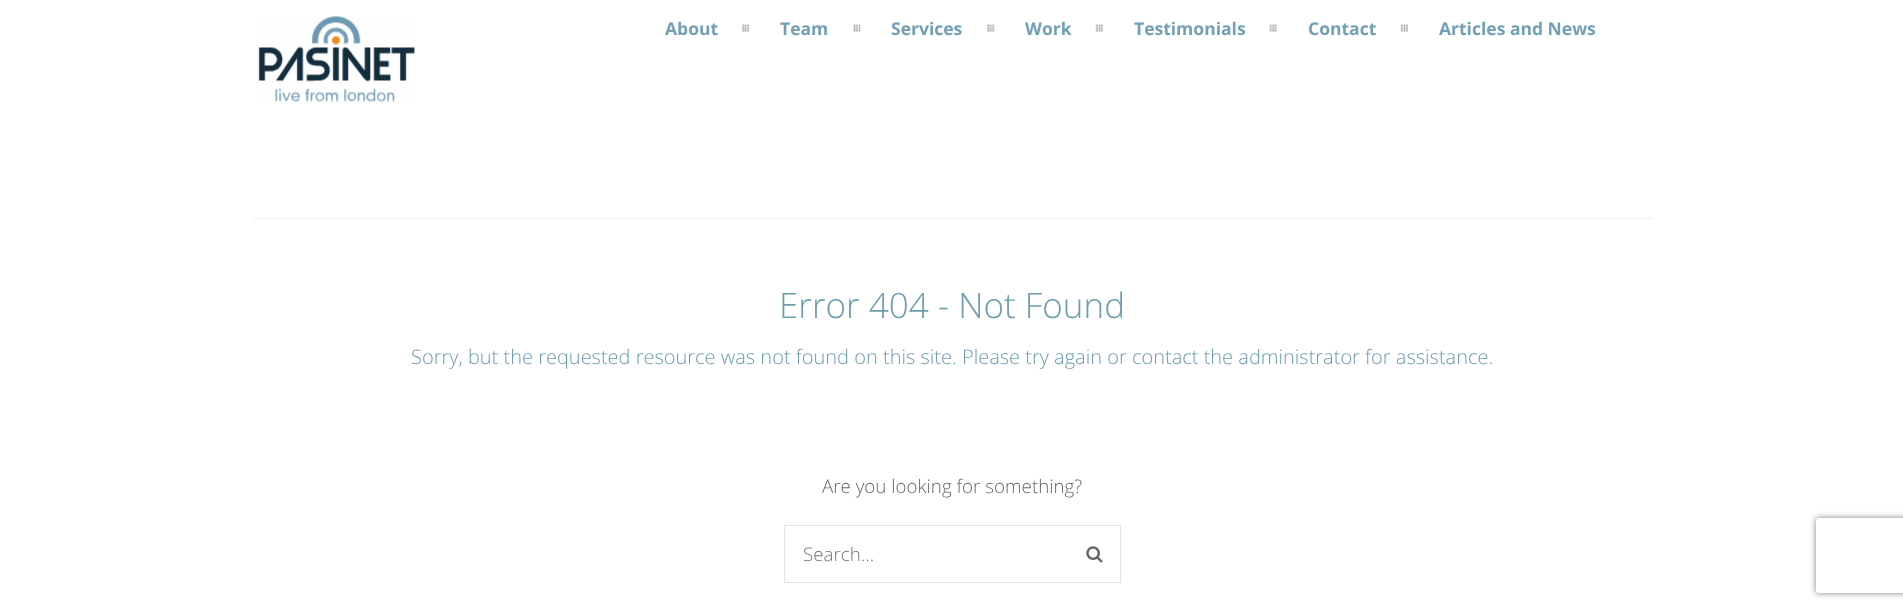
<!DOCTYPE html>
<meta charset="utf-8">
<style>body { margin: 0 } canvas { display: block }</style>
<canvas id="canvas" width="1903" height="610"></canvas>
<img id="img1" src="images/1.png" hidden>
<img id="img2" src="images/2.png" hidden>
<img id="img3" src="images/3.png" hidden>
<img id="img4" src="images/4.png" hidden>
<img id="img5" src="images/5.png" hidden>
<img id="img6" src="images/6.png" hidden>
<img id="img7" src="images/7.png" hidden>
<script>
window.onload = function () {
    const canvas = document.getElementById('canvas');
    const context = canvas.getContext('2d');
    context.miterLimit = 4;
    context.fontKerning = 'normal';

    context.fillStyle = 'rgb(255, 255, 255)';
    context.fillRect(0, 0, 1903, 610);
    context.drawImage(document.getElementById('img1'), 255, 16, 161, 91);
    context.drawImage(document.getElementById('img2'), 742, 24, 8, 8);
    context.drawImage(document.getElementById('img3'), 853, 24, 8, 8);
    context.drawImage(document.getElementById('img4'), 987, 24, 8, 8);
    context.drawImage(document.getElementById('img5'), 1095, 24, 8, 8);
    context.drawImage(document.getElementById('img6'), 1269, 24, 8, 8);
    context.drawImage(document.getElementById('img5'), 1400, 24, 8, 8);
    context.fillStyle = 'rgb(239, 239, 239)';
    context.fillRect(253, 218, 1400, 1);
    context.strokeStyle = 'rgb(228, 228, 228)';
    context.strokeRect(784.5, 525.5, 336, 57);
    context.drawImage(document.getElementById('img7'), 1086, 546, 17, 17);
    context.save();
    context.beginPath();
    context.moveTo(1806, 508);
    context.lineTo(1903, 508);
    context.lineTo(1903, 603);
    context.lineTo(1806, 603);
    context.closePath();
    context.moveTo(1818.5, 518);
    context.lineTo(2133.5, 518);
    context.bezierCurveTo(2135, 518, 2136, 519, 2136, 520.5);
    context.lineTo(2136, 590.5);
    context.bezierCurveTo(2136, 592, 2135, 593, 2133.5, 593);
    context.lineTo(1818.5, 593);
    context.bezierCurveTo(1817, 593, 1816, 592, 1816, 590.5);
    context.lineTo(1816, 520.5);
    context.bezierCurveTo(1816, 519, 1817, 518, 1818.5, 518);
    context.closePath();
    context.clip('evenodd');
    context.fillStyle = 'rgb(128, 128, 128)';
    context.filter = 'blur(3px)';
    context.beginPath();
    context.roundRect(1816, 518, 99, 75, 2.5);
    context.fill();
    context.filter = 'none';
    context.restore();
    context.font = 'bold 17.5px Open Sans';
    context.fillStyle = 'rgb(115, 160, 181)';
    context.fillText('About', 665, 35);
    context.fillText('Team', 780, 35);
    context.fillText('Services', 891, 35);
    context.fillText('Work', 1025, 35);
    context.fillText('Testimonials', 1134, 35);
    context.fillText('Contact', 1308, 35);
    context.fillText('Articles and News', 1439, 35);
    context.font = '300 35px Open Sans';
    context.fillStyle = 'rgb(109, 156, 174)';
    context.fillText('Error 404 - Not Found', 779, 318);
    context.font = '300 20px Open Sans';
    context.fillText('Sorry, but the requested resource was not found on this site. Please try again or contact the administrator for assistance.', 411, 364);
    context.font = '300 18.75px Open Sans';
    context.fillStyle = 'rgb(104, 104, 104)';
    context.fillText('Are you looking for something?', 822, 493);
    context.fillStyle = 'rgb(117, 117, 117)';
    context.fillText('Search...', 803, 561);
};
</script>
